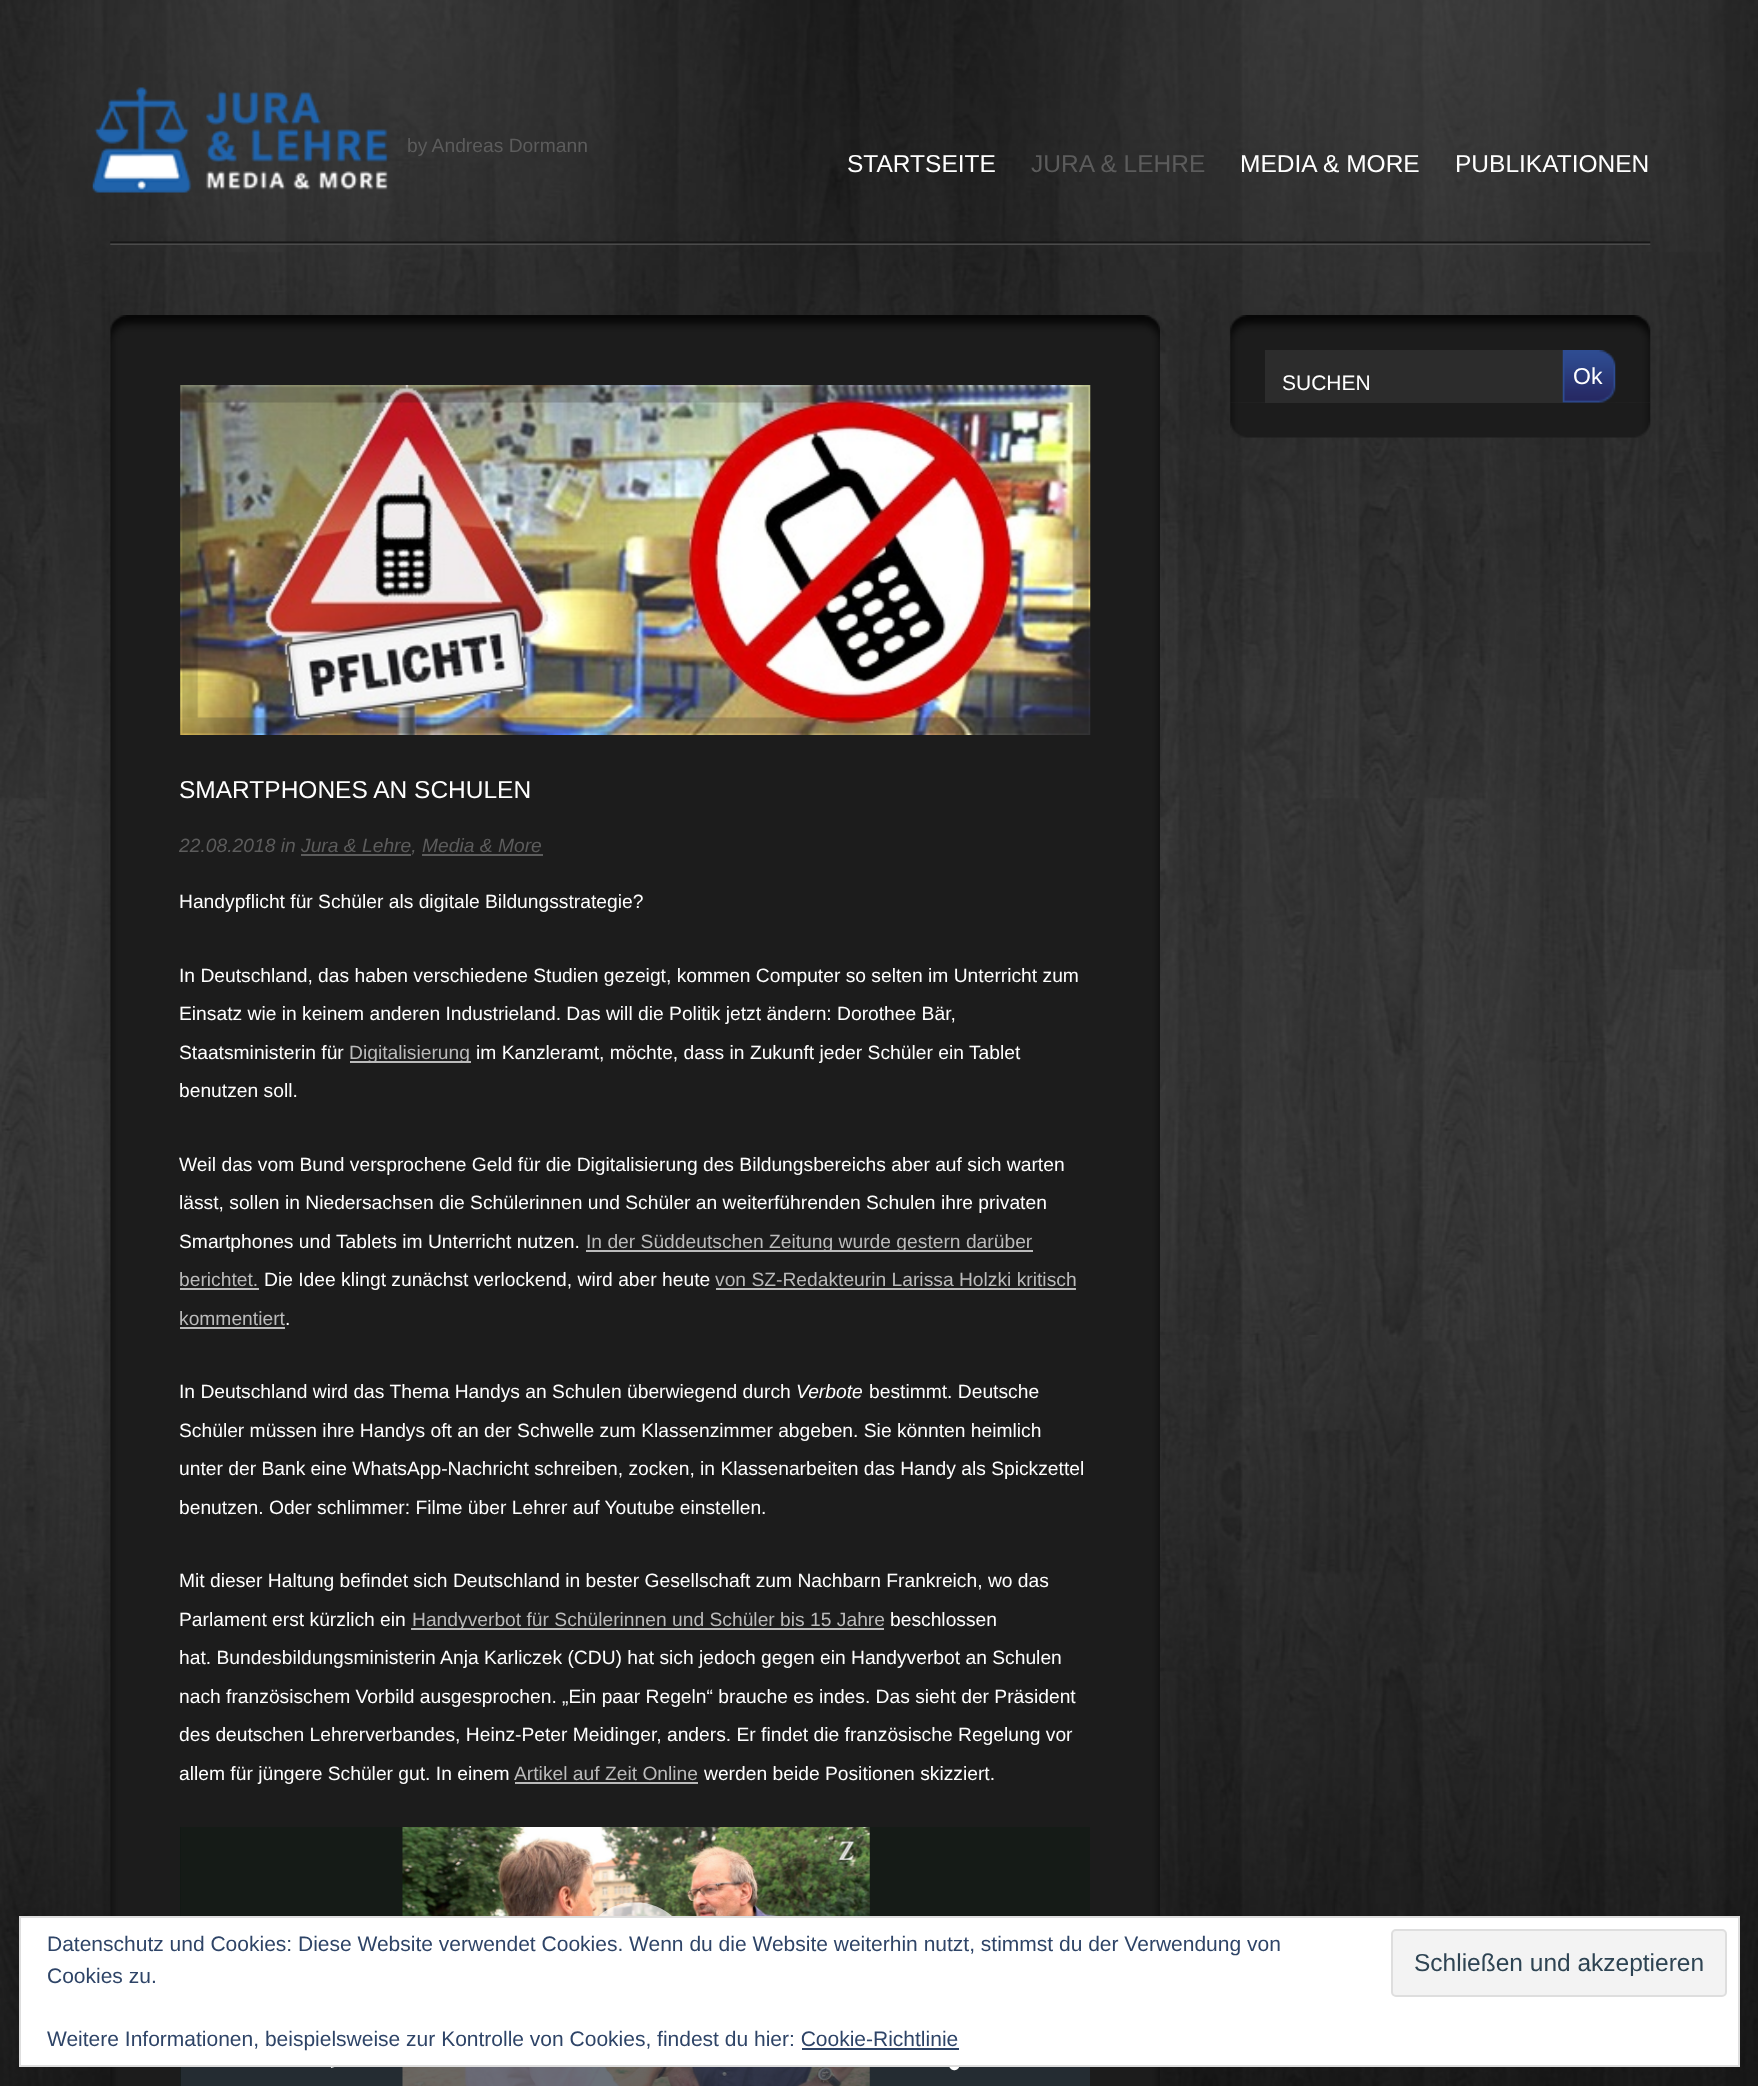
<!DOCTYPE html>
<meta charset="utf-8">
<style>body { margin: 0 } canvas { display: block }</style>
<canvas id="canvas" width="1758" height="2086"></canvas>
<img id="img1" src="images/1.png" hidden>
<img id="img2" src="images/2.png" hidden>
<img id="img3" src="images/3.png" hidden>
<img id="img4" src="images/4.png" hidden>
<img id="img5" src="images/7.png" hidden>
<img id="img6" src="images/5.png" hidden>
<img id="img7" src="images/6.png" hidden>
<img id="img8" src="images/8.png" hidden>
<img id="img9" src="images/9.png" hidden>
<img id="img10" src="images/10.png" hidden>
<img id="img11" src="images/11.png" hidden>
<img id="img12" src="images/12.png" hidden>
<script>
window.onload = function () {
    const canvas = document.getElementById('canvas');
    const context = canvas.getContext('2d');
    context.miterLimit = 4;
    context.fontKerning = 'normal';

    context.fillStyle = 'rgb(255, 255, 255)';
    context.fillRect(0, 0, 1758, 2086);
    context.drawImage(document.getElementById('img1'), 0, 0, 1758, 2086);
    context.drawImage(document.getElementById('img2'), 110, 241, 1541, 4);
    context.drawImage(document.getElementById('img3'), 92, 87, 296, 106);
    context.drawImage(document.getElementById('img4'), 1230, 315, 421, 35);
    context.drawImage(document.getElementById('img5'), 1230, 402, 421, 36);
    context.drawImage(document.getElementById('img6'), 1230, 350, 421, 53);
    context.fillStyle = 'rgb(44, 44, 44)';
    context.fillRect(1265, 350, 298, 53);
    context.drawImage(document.getElementById('img7'), 1562, 350, 54, 53);
    context.drawImage(document.getElementById('img8'), 110, 315, 1050, 35);
    context.drawImage(document.getElementById('img9'), 110, 350, 1050, 1736);
    context.drawImage(document.getElementById('img10'), 180, 385, 911, 350);
    context.drawImage(document.getElementById('img11'), 181, 385, 908, 349);
    context.fillStyle = 'rgb(92, 92, 92)';
    context.fillRect(301, 854, 110, 2);
    context.fillRect(422, 854, 121, 2);
    context.fillStyle = 'rgb(187, 187, 187)';
    context.fillRect(350, 1061, 121, 2);
    context.fillRect(586, 1250, 447, 2);
    context.fillRect(180, 1288, 79, 2);
    context.fillRect(716, 1288, 360, 2);
    context.fillRect(180, 1327, 105, 2);
    context.fillRect(411, 1628, 473, 2);
    context.fillRect(515, 1782, 183, 2);
    context.drawImage(document.getElementById('img12'), 180, 1827, 910, 259);
    context.fillStyle = 'rgb(255, 255, 255)';
    context.beginPath();
    context.rect(20, 1917, 1719, 149);
    context.fill();
    context.strokeStyle = 'rgb(222, 222, 222)';
    context.lineWidth = 2;
    context.stroke();
    context.fillStyle = 'rgb(243, 243, 243)';
    context.beginPath();
    context.roundRect(1392, 1930, 334, 66, 4);
    context.fill();
    context.stroke();
    context.fillStyle = 'rgb(46, 68, 103)';
    context.fillRect(802, 2048, 157, 2);
    context.font = '19.25px Liberation Sans';
    context.fillStyle = 'rgb(92, 92, 92)';
    context.fillText('by Andreas Dormann', 407, 152);
    context.font = '24.5px Liberation Sans';
    context.fillStyle = 'rgb(255, 255, 255)';
    context.fillText('STARTSEITE', 847, 172);
    context.fillStyle = 'rgb(92, 92, 92)';
    context.fillText('JURA & LEHRE', 1031, 172);
    context.fillStyle = 'rgb(255, 255, 255)';
    context.fillText('MEDIA & MORE', 1240, 172);
    context.fillText('PUBLIKATIONEN', 1455, 172);
    context.font = '21px Liberation Sans';
    context.fillText('SUCHEN', 1282, 390);
    context.font = '23px Liberation Sans';
    context.fillText('Ok', 1573, 384);
    context.font = '24.5px Liberation Sans';
    context.fillText('SMARTPHONES AN SCHULEN', 179, 798);
    context.font = 'italic 19.25px Liberation Sans';
    context.fillStyle = 'rgb(92, 92, 92)';
    context.fillText('22.08.2018 in Jura & Lehre, Media & More', 179, 852);
    context.font = '19.25px Liberation Sans';
    context.fillStyle = 'rgb(255, 255, 255)';
    context.fillText('Handypflicht für Schüler als digitale Bildungsstrategie?', 179, 908);
    context.fillText('In Deutschland, das haben verschiedene Studien gezeigt, kommen Computer so selten im Unterricht zum', 179, 982);
    context.fillText('Einsatz wie in keinem anderen Industrieland. Das will die Politik jetzt ändern: Dorothee Bär,', 179, 1020);
    context.fillText('Staatsministerin für', 179, 1059);
    context.fillStyle = 'rgb(187, 187, 187)';
    context.fillText('Digitalisierung', 349, 1059);
    context.fillStyle = 'rgb(255, 255, 255)';
    context.fillText('im Kanzleramt, möchte, dass in Zukunft jeder Schüler ein Tablet', 476, 1059);
    context.fillText('benutzen soll.', 179, 1097);
    context.fillText('Weil das vom Bund versprochene Geld für die Digitalisierung des Bildungsbereichs aber auf sich warten', 179, 1171);
    context.fillText('lässt, sollen in Niedersachsen die Schülerinnen und Schüler an weiterführenden Schulen ihre privaten', 179, 1209);
    context.fillText('Smartphones und Tablets im Unterricht nutzen.', 179, 1248);
    context.fillStyle = 'rgb(187, 187, 187)';
    context.fillText('In der Süddeutschen Zeitung wurde gestern darüber', 586, 1248);
    context.fillText('berichtet.', 179, 1286);
    context.fillStyle = 'rgb(255, 255, 255)';
    context.fillText('Die Idee klingt zunächst verlockend, wird aber heute', 264, 1286);
    context.fillStyle = 'rgb(187, 187, 187)';
    context.fillText('von SZ-Redakteurin Larissa Holzki kritisch', 715, 1286);
    context.fillText('kommentiert', 179, 1325);
    context.fillStyle = 'rgb(255, 255, 255)';
    context.fillText('.', 285, 1325);
    context.fillText('In Deutschland wird das Thema Handys an Schulen überwiegend durch', 179, 1398);
    context.font = 'italic 19.25px Liberation Sans';
    context.fillText('Verbote', 796, 1398);
    context.font = '19.25px Liberation Sans';
    context.fillText('bestimmt. Deutsche', 869, 1398);
    context.fillText('Schüler müssen ihre Handys oft an der Schwelle zum Klassenzimmer abgeben. Sie könnten heimlich', 179, 1437);
    context.fillText('unter der Bank eine WhatsApp-Nachricht schreiben, zocken, in Klassenarbeiten das Handy als Spickzettel', 179, 1475);
    context.fillText('benutzen. Oder schlimmer: Filme über Lehrer auf Youtube einstellen.', 179, 1514);
    context.fillText('Mit dieser Haltung befindet sich Deutschland in bester Gesellschaft zum Nachbarn Frankreich, wo das', 179, 1587);
    context.fillText('Parlament erst kürzlich ein', 179, 1626);
    context.fillStyle = 'rgb(187, 187, 187)';
    context.fillText('Handyverbot für Schülerinnen und Schüler bis 15 Jahre', 412, 1626);
    context.fillStyle = 'rgb(255, 255, 255)';
    context.fillText('beschlossen', 890, 1626);
    context.fillText('hat. Bundesbildungsministerin Anja Karliczek (CDU) hat sich jedoch gegen ein Handyverbot an Schulen', 179, 1664);
    context.fillText('nach französischem Vorbild ausgesprochen. „Ein paar Regeln“ brauche es indes. Das sieht der Präsident', 179, 1703);
    context.fillText('des deutschen Lehrerverbandes, Heinz-Peter Meidinger, anders. Er findet die französische Regelung vor', 179, 1741);
    context.fillText('allem für jüngere Schüler gut. In einem', 179, 1780);
    context.fillStyle = 'rgb(187, 187, 187)';
    context.fillText('Artikel auf Zeit Online', 514, 1780);
    context.fillStyle = 'rgb(255, 255, 255)';
    context.fillText('werden beide Positionen skizziert.', 704, 1780);
    context.font = '21px Liberation Sans';
    context.fillStyle = 'rgb(46, 68, 103)';
    context.fillText('Datenschutz und Cookies: Diese Website verwendet Cookies. Wenn du die Website weiterhin nutzt, stimmst du der Verwendung von', 47, 1951);
    context.fillText('Cookies zu.', 47, 1983);
    context.font = '24.5px Liberation Sans';
    context.fillStyle = 'rgb(46, 68, 83)';
    context.fillText('Schließen und akzeptieren', 1414, 1971);
    context.font = '21px Liberation Sans';
    context.fillStyle = 'rgb(46, 68, 103)';
    context.fillText('Weitere Informationen, beispielsweise zur Kontrolle von Cookies, findest du hier: Cookie-Richtlinie', 47, 2046);
};
</script>
